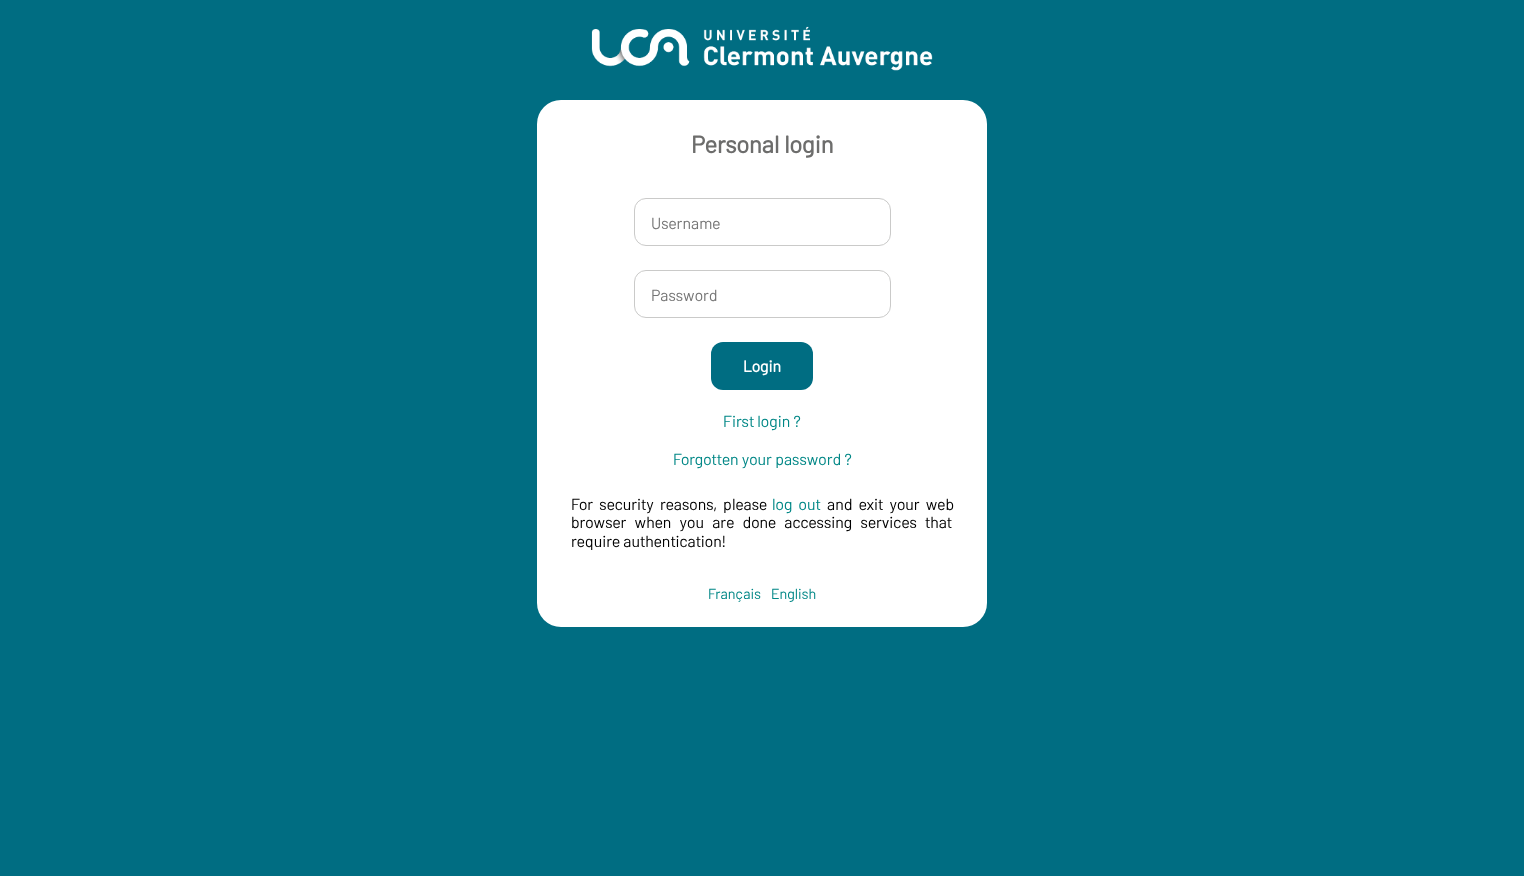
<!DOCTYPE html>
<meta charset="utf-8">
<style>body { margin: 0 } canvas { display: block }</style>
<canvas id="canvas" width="1524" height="876"></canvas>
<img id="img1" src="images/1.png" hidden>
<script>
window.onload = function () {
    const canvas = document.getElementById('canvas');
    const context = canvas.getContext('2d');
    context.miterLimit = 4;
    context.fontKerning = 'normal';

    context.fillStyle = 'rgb(0, 109, 130)';
    context.fillRect(0, 0, 1524, 876);
    context.drawImage(document.getElementById('img1'), 591, 26, 342, 45);
    context.fillStyle = 'rgb(255, 255, 255)';
    context.beginPath();
    context.roundRect(537, 100, 450, 527, 24);
    context.fill();
    context.beginPath();
    context.roundRect(634.5, 198.5, 256, 47, 11.5);
    context.strokeStyle = 'rgb(202, 202, 201)';
    context.stroke();
    context.beginPath();
    context.roundRect(634.5, 270.5, 256, 47, 11.5);
    context.stroke();
    context.fillStyle = 'rgb(0, 109, 130)';
    context.beginPath();
    context.roundRect(711, 342, 102, 48, 12);
    context.fill();
    context.font = 'bold 24px Barlow';
    context.fillStyle = 'rgb(109, 109, 108)';
    context.fillText('Personal login', 691, 153);
    context.font = '16px Barlow';
    context.fillStyle = 'rgb(117, 117, 117)';
    context.fillText('Username', 651, 229);
    context.fillText('Password', 651, 301);
    context.font = 'bold 16px Barlow';
    context.fillStyle = 'rgb(255, 255, 255)';
    context.fillText('Login', 743, 372);
    context.font = '16px Barlow';
    context.fillStyle = 'rgb(1, 135, 134)';
    context.fillText('First login ?', 723, 427);
    context.fillText('Forgotten your password ?', 673, 465);
    context.wordSpacing = '3px';
    context.fillStyle = 'rgb(0, 0, 0)';
    context.fillText('For security reasons, please', 571, 510);
    context.fillStyle = 'rgb(1, 135, 134)';
    context.fillText('log out', 772, 510);
    context.fillStyle = 'rgb(0, 0, 0)';
    context.fillText('and exit your web', 827, 510);
    context.wordSpacing = '5px';
    context.fillText('browser when you are done accessing services that', 571, 528);
    context.wordSpacing = '0px';
    context.fillText('require authentication!', 571, 547);
    context.font = '14.5px Barlow';
    context.fillStyle = 'rgb(1, 135, 134)';
    context.fillText('Français', 708, 599);
    context.fillText('English', 771, 599);
};
</script>
